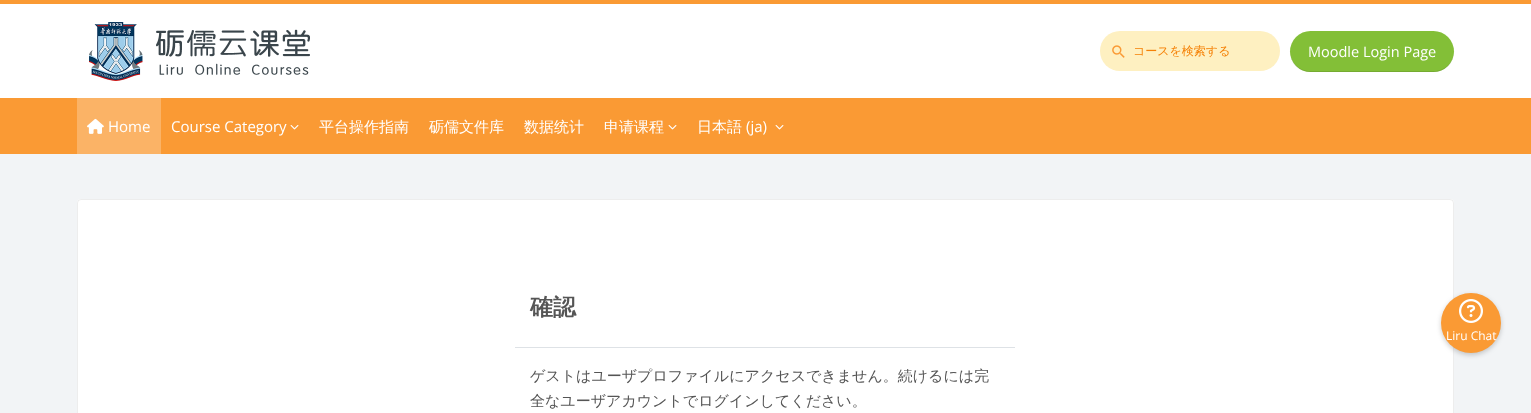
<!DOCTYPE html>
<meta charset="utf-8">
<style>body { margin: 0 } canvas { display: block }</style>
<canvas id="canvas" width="1531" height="413"></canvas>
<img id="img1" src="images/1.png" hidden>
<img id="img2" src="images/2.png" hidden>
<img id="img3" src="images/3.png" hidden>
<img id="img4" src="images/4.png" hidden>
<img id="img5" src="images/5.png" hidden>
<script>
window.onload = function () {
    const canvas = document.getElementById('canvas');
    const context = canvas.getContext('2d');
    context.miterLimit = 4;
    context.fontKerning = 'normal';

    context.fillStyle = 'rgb(242, 244, 246)';
    context.fillRect(0, 0, 1531, 413);
    context.fillStyle = 'rgb(250, 154, 52)';
    context.fillRect(0, 0, 1531, 4);
    context.fillStyle = 'rgb(255, 255, 255)';
    context.fillRect(0, 4, 1531, 94);
    context.drawImage(document.getElementById('img1'), 89, 22, 221, 59);
    context.fillStyle = 'rgb(254, 240, 193)';
    context.beginPath();
    context.roundRect(1100, 31, 180, 40, 20);
    context.fill();
    context.drawImage(document.getElementById('img2'), 1112, 45, 13, 13);
    context.fillStyle = 'rgb(131, 191, 55)';
    context.beginPath();
    context.roundRect(1290, 31, 164, 41, 20.5);
    context.fill();
    context.fillStyle = 'rgba(0, 0, 0, 0.1)';
    context.beginPath();
    context.moveTo(1290, 51);
    context.lineTo(1290, 52);
    context.bezierCurveTo(1290, 63, 1299, 72, 1310, 72);
    context.lineTo(1434, 72);
    context.bezierCurveTo(1445, 72, 1454, 63, 1454, 52);
    context.lineTo(1454, 51);
    context.bezierCurveTo(1454, 62, 1445, 71, 1434, 71);
    context.lineTo(1310, 71);
    context.bezierCurveTo(1299, 71, 1290, 62, 1290, 51);
    context.closePath();
    context.fill();
    context.fillStyle = 'rgb(250, 154, 52)';
    context.fillRect(0, 98, 1531, 56);
    context.fillStyle = 'rgb(251, 179, 102)';
    context.fillRect(77, 98, 84, 56);
    context.drawImage(document.getElementById('img3'), 87, 118, 17, 16);
    context.drawImage(document.getElementById('img4'), 290, 125, 9, 5);
    context.drawImage(document.getElementById('img4'), 668, 125, 9, 5);
    context.drawImage(document.getElementById('img4'), 775, 125, 9, 5);
    context.fillStyle = 'rgb(255, 255, 255)';
    context.beginPath();
    context.roundRect(77, 199, 1377, 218, 4);
    context.fill();
    context.beginPath();
    context.roundRect(77.5, 199.5, 1376, 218, 3.5);
    context.strokeStyle = 'rgba(0, 0, 0, 0.07)';
    context.stroke();
    context.fillStyle = 'rgb(222, 226, 230)';
    context.fillRect(515, 347, 500, 1);
    context.fillStyle = 'rgba(0, 0, 0, 0.2)';
    context.filter = 'blur(2.5px)';
    context.beginPath();
    context.roundRect(1441, 295, 60, 60, 30);
    context.fill();
    context.filter = 'none';
    context.fillStyle = 'rgb(250, 154, 52)';
    context.beginPath();
    context.arc(1471, 323, 30, 0, 2 * Math.PI);
    context.fill();
    context.drawImage(document.getElementById('img5'), 1459, 299, 24, 24);
    context.font = '500 12px WenQuanYi Zen Hei';
    context.fillStyle = 'rgb(245, 129, 6)';
    context.fillText('コースを検索する', 1133, 55);
    context.font = '14.5px Open Sans';
    context.fillStyle = 'rgb(255, 255, 255)';
    context.fillText('Moodle Login Page', 1308, 57);
    context.font = '15px Open Sans';
    context.fillText('Home', 108, 132);
    context.fillText('Course Category', 171, 132);
    context.font = '500 15px WenQuanYi Zen Hei';
    context.fillText('平台操作指南', 319, 132);
    context.fillText('砺儒文件库', 429, 132);
    context.fillText('数据统计', 524, 132);
    context.fillText('申请课程', 604, 132);
    context.fillText('日本語', 697, 132);
    context.font = '15px Open Sans';
    context.fillText('(ja)', 746, 132);
    context.font = 'bold 23px WenQuanYi Zen Hei';
    context.fillStyle = 'rgb(85, 85, 85)';
    context.fillText('確認', 530, 315);
    context.font = '500 15px WenQuanYi Zen Hei';
    context.fillText('ゲストはユーザプロファイルにアクセスできません。続けるには完', 530, 381);
    context.fillText('全なユーザアカウントでログインしてください。', 530, 406);
    context.font = '12px Open Sans';
    context.fillStyle = 'rgb(255, 255, 255)';
    context.fillText('Liru Chat', 1446, 340);
};
</script>
